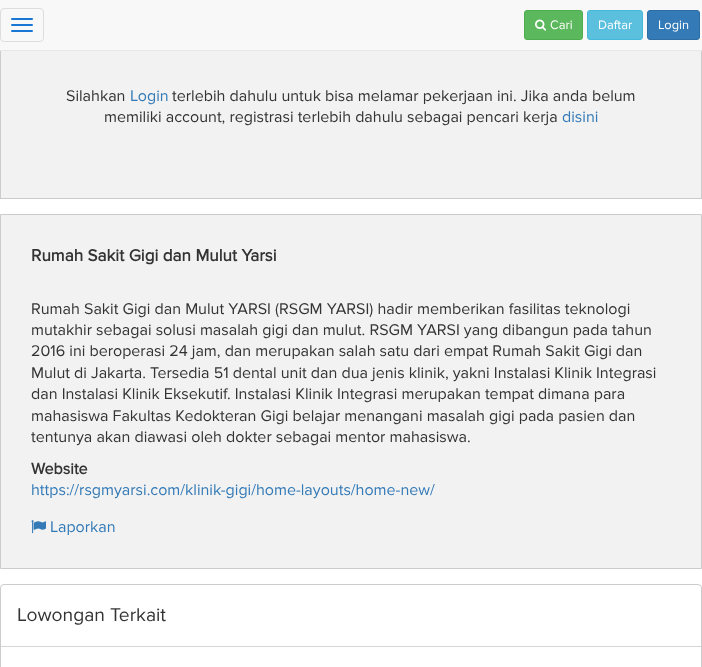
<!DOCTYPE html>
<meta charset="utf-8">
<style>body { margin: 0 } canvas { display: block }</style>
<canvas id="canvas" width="702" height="667"></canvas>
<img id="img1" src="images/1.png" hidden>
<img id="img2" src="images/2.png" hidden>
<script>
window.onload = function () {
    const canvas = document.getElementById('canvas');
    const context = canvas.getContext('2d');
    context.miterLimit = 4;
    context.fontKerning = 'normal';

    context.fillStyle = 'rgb(255, 255, 255)';
    context.fillRect(0, 0, 702, 667);
    context.fillStyle = 'rgb(242, 242, 242)';
    context.fillRect(1, 51, 700, 147);
    context.strokeStyle = 'rgb(204, 204, 204)';
    context.strokeRect(0.5, -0.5, 701, 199);
    context.fillStyle = 'rgb(248, 248, 248)';
    context.fillRect(0, 0, 702, 50);
    context.fillStyle = 'rgb(231, 231, 231)';
    context.fillRect(0, 50, 702, 1);
    context.beginPath();
    context.roundRect(0.5, 8.5, 43, 33, 3.5);
    context.strokeStyle = 'rgb(221, 221, 221)';
    context.stroke();
    context.fillStyle = 'rgb(25, 118, 210)';
    context.beginPath();
    context.roundRect(11, 18, 22, 2, 1);
    context.fill();
    context.beginPath();
    context.roundRect(11, 24, 22, 2, 1);
    context.fill();
    context.beginPath();
    context.roundRect(11, 30, 22, 2, 1);
    context.fill();
    context.fillStyle = 'rgb(92, 184, 92)';
    context.beginPath();
    context.roundRect(524.5, 10.5, 58, 29, 2.5);
    context.fill();
    context.strokeStyle = 'rgb(76, 174, 76)';
    context.stroke();
    context.drawImage(document.getElementById('img1'), 535, 19, 12, 12);
    context.fillStyle = 'rgb(91, 192, 222)';
    context.beginPath();
    context.roundRect(587.5, 10.5, 55, 29, 2.5);
    context.fill();
    context.strokeStyle = 'rgb(70, 184, 218)';
    context.stroke();
    context.fillStyle = 'rgb(51, 122, 183)';
    context.beginPath();
    context.roundRect(647.5, 10.5, 52, 29, 2.5);
    context.fill();
    context.strokeStyle = 'rgb(46, 109, 164)';
    context.stroke();
    context.fillStyle = 'rgb(242, 242, 242)';
    context.beginPath();
    context.rect(0.5, 214.5, 701, 354);
    context.fill();
    context.strokeStyle = 'rgb(204, 204, 204)';
    context.stroke();
    context.drawImage(document.getElementById('img2'), 31, 520, 15, 14);
    context.beginPath();
    context.roundRect(0.5, 584.5, 701, 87, 3.5);
    context.stroke();
    context.fillStyle = 'rgb(213, 213, 213)';
    context.fillRect(1, 646, 700, 1);
    context.font = '12px Proxima Nova';
    context.fillStyle = 'rgb(255, 255, 255)';
    context.fillText('Cari', 550, 29);
    context.fillText('Daftar', 598, 29);
    context.fillText('Login', 658, 29);
    context.font = '15px Proxima Nova';
    context.fillStyle = 'rgb(51, 51, 51)';
    context.fillText('Silahkan', 66, 101);
    context.fillStyle = 'rgb(51, 122, 183)';
    context.fillText('Login', 130, 101);
    context.fillStyle = 'rgb(51, 51, 51)';
    context.fillText('terlebih dahulu untuk bisa melamar pekerjaan ini. Jika anda belum', 172, 101);
    context.fillText('memiliki account, registrasi terlebih dahulu sebagai pencari kerja', 104, 122);
    context.fillStyle = 'rgb(51, 122, 183)';
    context.fillText('disini', 562, 122);
    context.font = 'bold 16px Proxima Nova';
    context.fillStyle = 'rgb(51, 51, 51)';
    context.fillText('Rumah Sakit Gigi dan Mulut Yarsi', 31, 261);
    context.font = '15px Proxima Nova';
    context.fillText('Rumah Sakit Gigi dan Mulut YARSI (RSGM YARSI) hadir memberikan fasilitas teknologi', 31, 314);
    context.fillText('mutakhir sebagai solusi masalah gigi dan mulut. RSGM YARSI yang dibangun pada tahun', 31, 335);
    context.fillText('2016 ini beroperasi 24 jam, dan merupakan salah satu dari empat Rumah Sakit Gigi dan', 31, 356);
    context.fillText('Mulut di Jakarta. Tersedia 51 dental unit dan dua jenis klinik, yakni Instalasi Klinik Integrasi', 31, 378);
    context.fillText('dan Instalasi Klinik Eksekutif. Instalasi Klinik Integrasi merupakan tempat dimana para', 31, 399);
    context.fillText('mahasiswa Fakultas Kedokteran Gigi belajar menangani masalah gigi pada pasien dan', 31, 421);
    context.fillText('tentunya akan diawasi oleh dokter sebagai mentor mahasiswa.', 31, 442);
    context.font = 'bold 15px Proxima Nova';
    context.fillText('Website', 31, 474);
    context.font = '15px Proxima Nova';
    context.fillStyle = 'rgb(51, 122, 183)';
    context.fillText('https://rsgmyarsi.com/klinik-gigi/home-layouts/home-new/', 31, 495);
    context.fillText('Laporkan', 50, 532);
    context.font = '18px Proxima Nova';
    context.fillStyle = 'rgb(51, 51, 51)';
    context.fillText('Lowongan Terkait', 17, 621);
};
</script>
